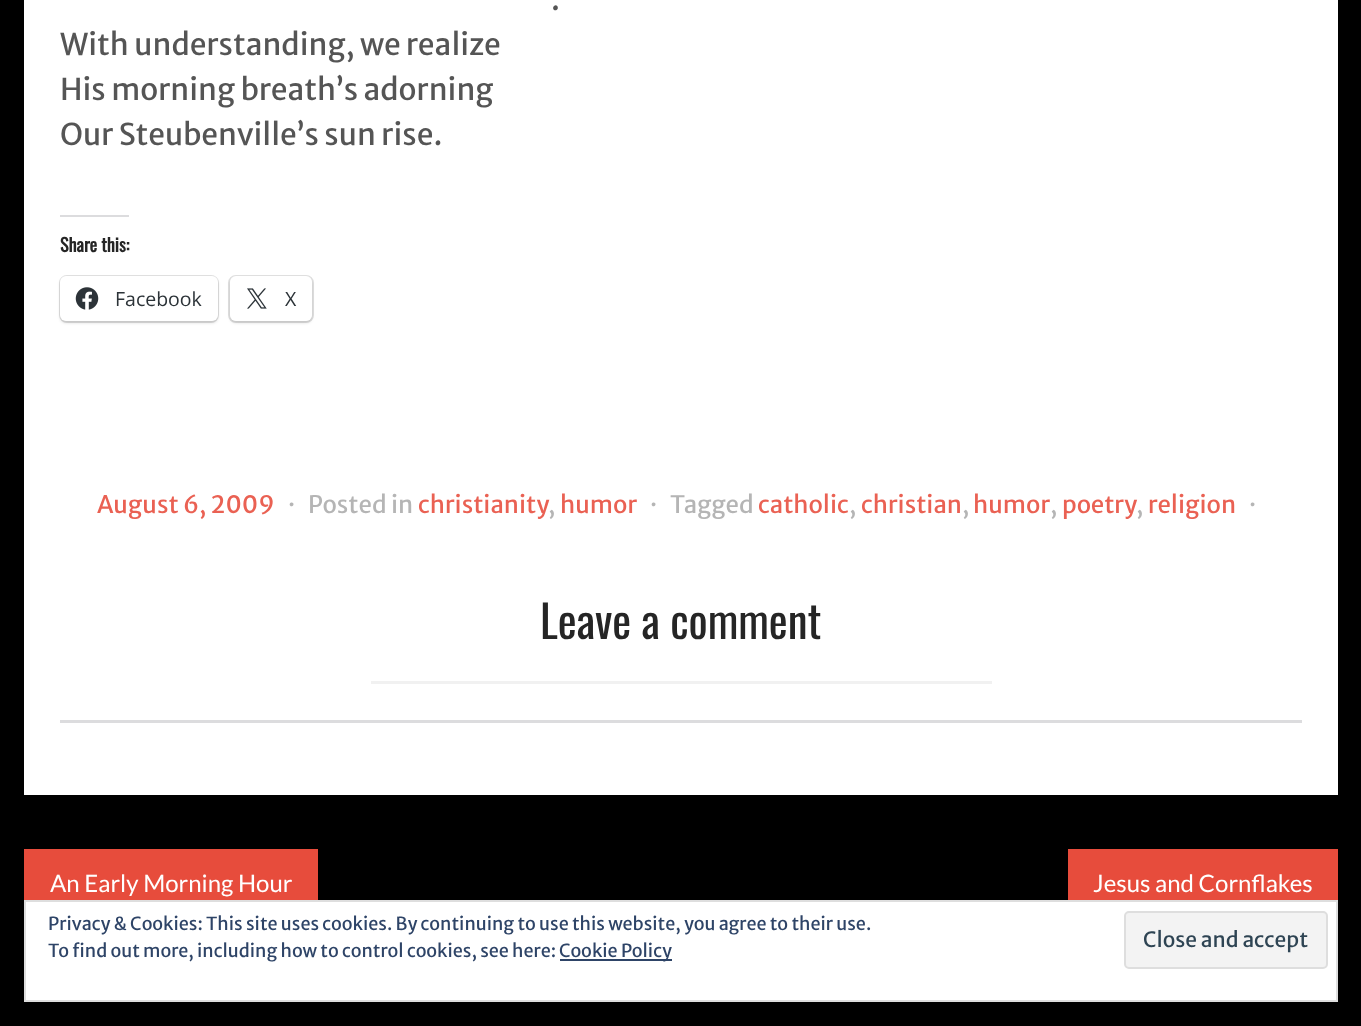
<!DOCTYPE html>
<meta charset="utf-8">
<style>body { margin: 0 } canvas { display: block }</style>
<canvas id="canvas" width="1361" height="1026"></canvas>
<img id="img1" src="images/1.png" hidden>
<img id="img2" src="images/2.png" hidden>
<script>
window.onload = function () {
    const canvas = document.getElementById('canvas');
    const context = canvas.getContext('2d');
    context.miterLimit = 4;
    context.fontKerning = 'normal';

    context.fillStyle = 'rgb(0, 0, 0)';
    context.fillRect(0, 0, 1361, 1026);
    context.fillStyle = 'rgb(255, 255, 255)';
    context.fillRect(24, 0, 1314, 795);
    context.fillStyle = 'rgb(220, 220, 222)';
    context.fillRect(60, 215, 69, 2);
    context.beginPath();
    context.roundRect(60, 276, 158, 46, 7);
    context.strokeStyle = 'rgb(224, 224, 224)';
    context.lineWidth = 2;
    context.stroke();
    context.fillStyle = 'rgba(0, 0, 0, 0.12)';
    context.filter = 'blur(1.5px)';
    context.beginPath();
    context.roundRect(60, 278, 158, 45, 6);
    context.fill();
    context.filter = 'none';
    context.fillStyle = 'rgb(255, 255, 255)';
    context.beginPath();
    context.roundRect(60, 276, 158, 45, 6);
    context.fill();
    context.drawImage(document.getElementById('img1'), 75, 287, 24, 23);
    context.beginPath();
    context.roundRect(229, 276, 84, 46, 7);
    context.stroke();
    context.fillStyle = 'rgba(0, 0, 0, 0.12)';
    context.filter = 'blur(1.5px)';
    context.beginPath();
    context.roundRect(230, 278, 82, 45, 6);
    context.fill();
    context.filter = 'none';
    context.fillStyle = 'rgb(255, 255, 255)';
    context.beginPath();
    context.roundRect(230, 276, 82, 45, 6);
    context.fill();
    context.drawImage(document.getElementById('img2'), 247, 288, 20, 21);
    context.fillStyle = 'rgb(241, 241, 241)';
    context.fillRect(371, 681, 621, 3);
    context.fillStyle = 'rgb(220, 220, 222)';
    context.fillRect(60, 720, 1242, 3);
    context.fillStyle = 'rgb(231, 76, 60)';
    context.fillRect(24, 849, 294, 51);
    context.fillRect(1068, 849, 270, 51);
    context.fillStyle = 'rgb(255, 255, 255)';
    context.beginPath();
    context.rect(25, 901, 1312, 100);
    context.fill();
    context.strokeStyle = 'rgb(222, 222, 222)';
    context.stroke();
    context.fillStyle = 'rgb(46, 68, 103)';
    context.fillRect(560, 959, 112, 2);
    context.fillStyle = 'rgb(243, 243, 243)';
    context.beginPath();
    context.roundRect(1125, 912, 202, 56, 4);
    context.fill();
    context.stroke();
    context.font = '30px Merriweather Sans';
    context.fillStyle = 'rgb(85, 85, 85)';
    context.fillText('.', 551, 10);
    context.fillText('With understanding, we realize', 60, 55);
    context.fillText('His morning breath’s adorning', 60, 100);
    context.fillText('Our Steubenville’s sun rise.', 60, 145);
    context.font = 'bold 18px Oswald';
    context.fillStyle = 'rgb(37, 37, 37)';
    context.fillText('Share this:', 60, 252);
    context.font = '19.5px Open Sans';
    context.fillStyle = 'rgb(44, 51, 56)';
    context.fillText('Facebook', 115, 306);
    context.fillText('X', 285, 306);
    context.font = '24px Merriweather Sans';
    context.fillStyle = 'rgb(234, 97, 83)';
    context.fillText('August 6, 2009', 97, 513);
    context.fillStyle = 'rgb(181, 181, 181)';
    context.fillText('·', 288, 513);
    context.fillText('Posted in', 308, 513);
    context.fillStyle = 'rgb(234, 97, 83)';
    context.fillText('christianity', 418, 513);
    context.fillText('humor', 560, 513);
    context.fillStyle = 'rgb(181, 181, 181)';
    context.fillText('·', 650, 513);
    context.fillText('Tagged', 670, 513);
    context.fillStyle = 'rgb(234, 97, 83)';
    context.fillText('catholic', 758, 513);
    context.fillText('christian', 861, 513);
    context.fillText('humor', 973, 513);
    context.fillText('poetry', 1062, 513);
    context.fillText('religion', 1148, 513);
    context.fillStyle = 'rgb(181, 181, 181)';
    context.fillText('·', 1249, 513);
    context.fillText(',', 548, 513);
    context.fillText(',', 849, 513);
    context.fillText(',', 962, 513);
    context.fillText(',', 1050, 513);
    context.fillText(',', 1136, 513);
    context.font = '45px Oswald';
    context.fillStyle = 'rgb(37, 37, 37)';
    context.fillText('Leave a comment', 540, 639);
    context.font = '24px Lato';
    context.fillStyle = 'rgb(255, 255, 255)';
    context.fillText('An Early Morning Hour', 50, 892);
    context.fillText('Jesus and Cornflakes', 1093, 892);
    context.font = '18px Merriweather Sans';
    context.fillStyle = 'rgb(46, 68, 103)';
    context.fillText('Privacy & Cookies: This site uses cookies. By continuing to use this website, you agree to their use.', 48, 930);
    context.fillText('To find out more, including how to control cookies, see here:', 48, 957);
    context.fillText('Cookie Policy', 559, 957);
    context.font = '21px Merriweather Sans';
    context.fillStyle = 'rgb(46, 68, 83)';
    context.fillText('Close and accept', 1143, 947);
};
</script>
